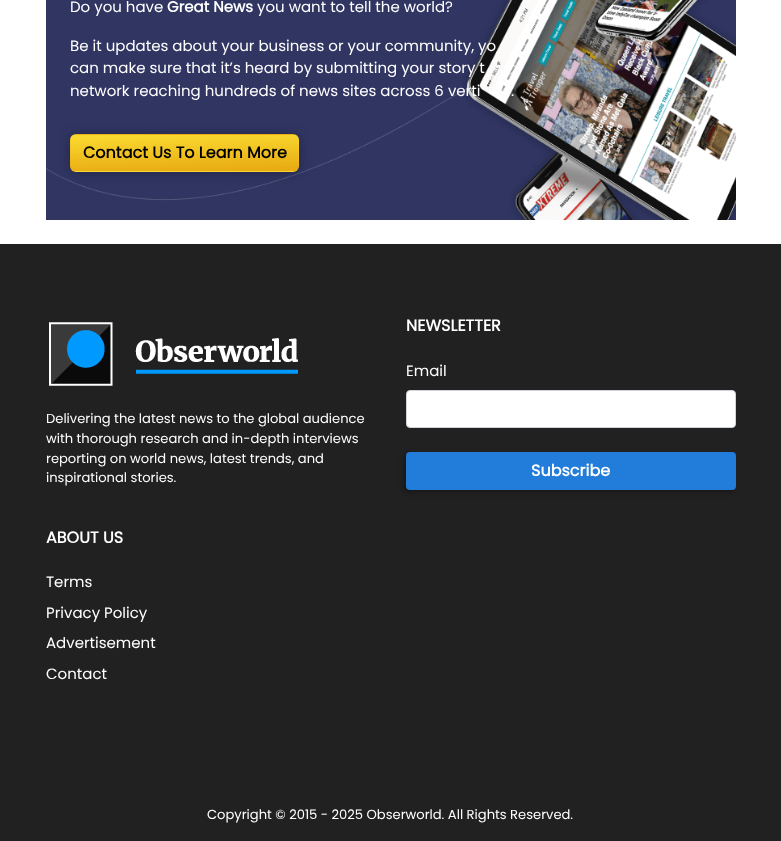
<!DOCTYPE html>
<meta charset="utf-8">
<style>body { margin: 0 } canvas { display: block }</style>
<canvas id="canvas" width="781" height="841"></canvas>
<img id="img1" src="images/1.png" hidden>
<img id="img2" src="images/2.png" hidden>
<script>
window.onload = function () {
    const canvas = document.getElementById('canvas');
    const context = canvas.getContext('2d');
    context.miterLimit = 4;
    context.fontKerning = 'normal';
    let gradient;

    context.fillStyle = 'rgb(255, 255, 255)';
    context.fillRect(0, 0, 781, 841);
    context.drawImage(document.getElementById('img1'), 46, 0, 690, 220);
    context.fillStyle = 'rgba(0, 0, 0, 0.25)';
    context.filter = 'blur(6px)';
    context.beginPath();
    context.roundRect(70, 135, 229, 38, 6);
    context.fill();
    context.filter = 'none';
    context.save();
    context.beginPath();
    context.roundRect(70, 134, 229, 38, 6);
    context.clip();
    gradient = context.createLinearGradient(184, 98, 185, 136);
    gradient.addColorStop(0.02, 'rgb(249, 216, 47)');
    gradient.addColorStop(0.96, 'rgb(233, 173, 19)');
    context.fillStyle = gradient;
    context.fillRect(71, 134, 227, 1);
    gradient = context.createLinearGradient(-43, 134, -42, 172);
    gradient.addColorStop(0.02, 'rgb(249, 216, 47)');
    gradient.addColorStop(0.96, 'rgb(233, 173, 19)');
    context.fillStyle = gradient;
    context.fillRect(70, 135, 1, 36);
    gradient = context.createLinearGradient(184, 134, 185, 172);
    gradient.addColorStop(0.02, 'rgb(249, 216, 47)');
    gradient.addColorStop(0.96, 'rgb(233, 173, 19)');
    context.fillStyle = gradient;
    context.fillRect(71, 135, 227, 36);
    gradient = context.createLinearGradient(411, 134, 412, 172);
    gradient.addColorStop(0.02, 'rgb(249, 216, 47)');
    gradient.addColorStop(0.96, 'rgb(233, 173, 19)');
    context.fillStyle = gradient;
    context.fillRect(298, 135, 1, 36);
    gradient = context.createLinearGradient(184, 170, 185, 208);
    gradient.addColorStop(0.02, 'rgb(249, 216, 47)');
    gradient.addColorStop(0.96, 'rgb(233, 173, 19)');
    context.fillStyle = gradient;
    context.fillRect(71, 171, 227, 1);
    context.restore();
    context.fillStyle = 'rgb(33, 33, 33)';
    context.fillRect(0, 244, 781, 597);
    context.drawImage(document.getElementById('img2'), 49, 322, 249, 64);
    context.fillStyle = 'rgb(255, 255, 255)';
    context.beginPath();
    context.roundRect(406.5, 390.5, 329, 37, 3.5);
    context.fill();
    context.strokeStyle = 'rgb(206, 212, 218)';
    context.stroke();
    context.fillStyle = 'rgba(0, 0, 0, 0.35)';
    context.filter = 'blur(2.5px)';
    context.beginPath();
    context.roundRect(404, 454, 330, 38, 4);
    context.fill();
    context.filter = 'none';
    context.fillStyle = 'rgb(34, 124, 217)';
    context.beginPath();
    context.roundRect(406, 452, 330, 38, 4);
    context.fill();
    context.font = '15px Poppins';
    context.fillStyle = 'rgb(255, 255, 255)';
    context.fillText('Do you have', 70, 12);
    context.font = 'bold 15px Poppins';
    context.fillText('Great News', 167, 12);
    context.font = '15px Poppins';
    context.fillText('you want to tell the world?', 257, 12);
    context.fillText('Be it updates about your business or your community, yo', 70, 51);
    context.fillText('can make sure that it’s heard by submitting your story t', 70, 73);
    context.fillText('network reaching hundreds of news sites across 6 verti', 70, 96);
    context.fillText('.', 511, 96);
    context.font = 'bold 16px Poppins';
    context.fillStyle = 'rgb(0, 0, 0)';
    context.fillText('Contact Us To Learn More', 83, 158);
    context.font = '13.1px Poppins';
    context.fillStyle = 'rgb(255, 255, 255)';
    context.fillText('Delivering the latest news to the global audience', 46, 423);
    context.fillText('with thorough research and in-depth interviews', 46, 443);
    context.fillText('reporting on world news, latest trends, and', 46, 463);
    context.fillText('inspirational stories.', 46, 482);
    context.font = 'bold 16px Poppins';
    context.fillText('NEWSLETTER', 406, 331);
    context.font = '15px Poppins';
    context.fillText('Email', 406, 376);
    context.font = 'bold 16px Poppins';
    context.fillText('Subscribe', 531, 476);
    context.fillText('ABOUT US', 46, 543);
    context.font = '15px Poppins';
    context.fillText('Terms', 46, 587);
    context.fillText('Privacy Policy', 46, 618);
    context.fillText('Advertisement', 46, 648);
    context.fillText('Contact', 46, 679);
    context.font = '13.1px Poppins';
    context.fillText('Copyright © 2015 - 2025 Obserworld. All Rights Reserved.', 207, 819);
};
</script>
